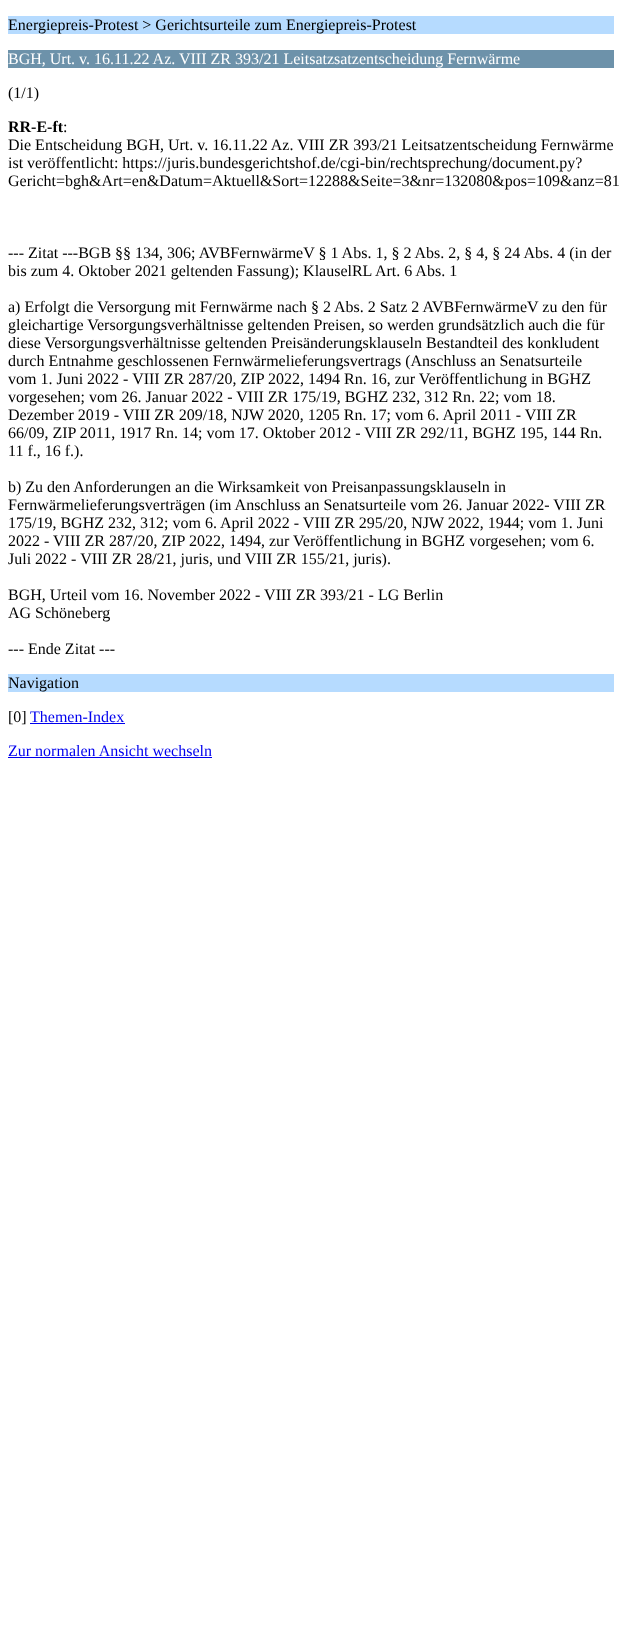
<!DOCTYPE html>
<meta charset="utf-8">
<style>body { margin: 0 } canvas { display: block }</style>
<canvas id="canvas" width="622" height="1650"></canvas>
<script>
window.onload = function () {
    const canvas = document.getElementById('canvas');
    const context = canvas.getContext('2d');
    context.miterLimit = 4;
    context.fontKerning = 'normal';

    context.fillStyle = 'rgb(255, 255, 255)';
    context.fillRect(0, 0, 622, 1650);
    context.fillStyle = 'rgb(182, 219, 255)';
    context.fillRect(8, 16, 606, 18);
    context.fillStyle = 'rgb(109, 146, 170)';
    context.fillRect(8, 50, 606, 18);
    context.fillStyle = 'rgb(182, 219, 255)';
    context.fillRect(8, 674, 606, 18);
    context.fillStyle = 'rgb(0, 0, 238)';
    context.fillRect(30, 723, 95, 1);
    context.fillRect(8, 757, 204, 1);
    context.font = '16px Liberation Serif';
    context.fillStyle = 'rgb(0, 0, 0)';
    context.fillText('Energiepreis-Protest > Gerichtsurteile zum Energiepreis-Protest', 8, 30);
    context.fillStyle = 'rgb(255, 255, 255)';
    context.fillText('BGH, Urt. v. 16.11.22 Az. VIII ZR 393/21 Leitsatzsatzentscheidung Fernwärme', 8, 64);
    context.fillStyle = 'rgb(0, 0, 0)';
    context.fillText('(1/1)', 8, 98);
    context.font = 'bold 16px Liberation Serif';
    context.fillText('RR-E-ft', 8, 132);
    context.font = '16px Liberation Serif';
    context.fillText(':', 63, 132);
    context.fillText('Die Entscheidung BGH, Urt. v. 16.11.22 Az. VIII ZR 393/21 Leitsatzentscheidung Fernwärme', 8, 150);
    context.fillText('ist veröffentlicht: https://juris.bundesgerichtshof.de/cgi-bin/rechtsprechung/document.py?', 8, 168);
    context.fillText('Gericht=bgh&Art=en&Datum=Aktuell&Sort=12288&Seite=3&nr=132080&pos=109&anz=81', 8, 186);
    context.fillText('--- Zitat ---BGB §§ 134, 306; AVBFernwärmeV § 1 Abs. 1, § 2 Abs. 2, § 4, § 24 Abs. 4 (in der', 8, 258);
    context.fillText('bis zum 4. Oktober 2021 geltenden Fassung); KlauselRL Art. 6 Abs. 1', 8, 276);
    context.fillText('a) Erfolgt die Versorgung mit Fernwärme nach § 2 Abs. 2 Satz 2 AVBFernwärmeV zu den für', 8, 312);
    context.fillText('gleichartige Versorgungsverhältnisse geltenden Preisen, so werden grundsätzlich auch die für', 8, 330);
    context.fillText('diese Versorgungsverhältnisse geltenden Preisänderungsklauseln Bestandteil des konkludent', 8, 348);
    context.fillText('durch Entnahme geschlossenen Fernwärmelieferungsvertrags (Anschluss an Senatsurteile', 8, 366);
    context.fillText('vom 1. Juni 2022 - VIII ZR 287/20, ZIP 2022, 1494 Rn. 16, zur Veröffentlichung in BGHZ', 8, 384);
    context.fillText('vorgesehen; vom 26. Januar 2022 - VIII ZR 175/19, BGHZ 232, 312 Rn. 22; vom 18.', 8, 402);
    context.fillText('Dezember 2019 - VIII ZR 209/18, NJW 2020, 1205 Rn. 17; vom 6. April 2011 - VIII ZR', 8, 420);
    context.fillText('66/09, ZIP 2011, 1917 Rn. 14; vom 17. Oktober 2012 - VIII ZR 292/11, BGHZ 195, 144 Rn.', 8, 438);
    context.fillText('11 f., 16 f.).', 8, 456);
    context.fillText('b) Zu den Anforderungen an die Wirksamkeit von Preisanpassungsklauseln in', 8, 492);
    context.fillText('Fernwärmelieferungsverträgen (im Anschluss an Senatsurteile vom 26. Januar 2022- VIII ZR', 8, 510);
    context.fillText('175/19, BGHZ 232, 312; vom 6. April 2022 - VIII ZR 295/20, NJW 2022, 1944; vom 1. Juni', 8, 528);
    context.fillText('2022 - VIII ZR 287/20, ZIP 2022, 1494, zur Veröffentlichung in BGHZ vorgesehen; vom 6.', 8, 546);
    context.fillText('Juli 2022 - VIII ZR 28/21, juris, und VIII ZR 155/21, juris).', 8, 564);
    context.fillText('BGH, Urteil vom 16. November 2022 - VIII ZR 393/21 - LG Berlin', 8, 600);
    context.fillText('AG Schöneberg', 8, 618);
    context.fillText('--- Ende Zitat ---', 8, 654);
    context.fillText('Navigation', 8, 688);
    context.fillText('[0]', 8, 722);
    context.fillStyle = 'rgb(0, 0, 238)';
    context.fillText('Themen-Index', 30, 722);
    context.fillText('Zur normalen Ansicht wechseln', 8, 756);
};
</script>
